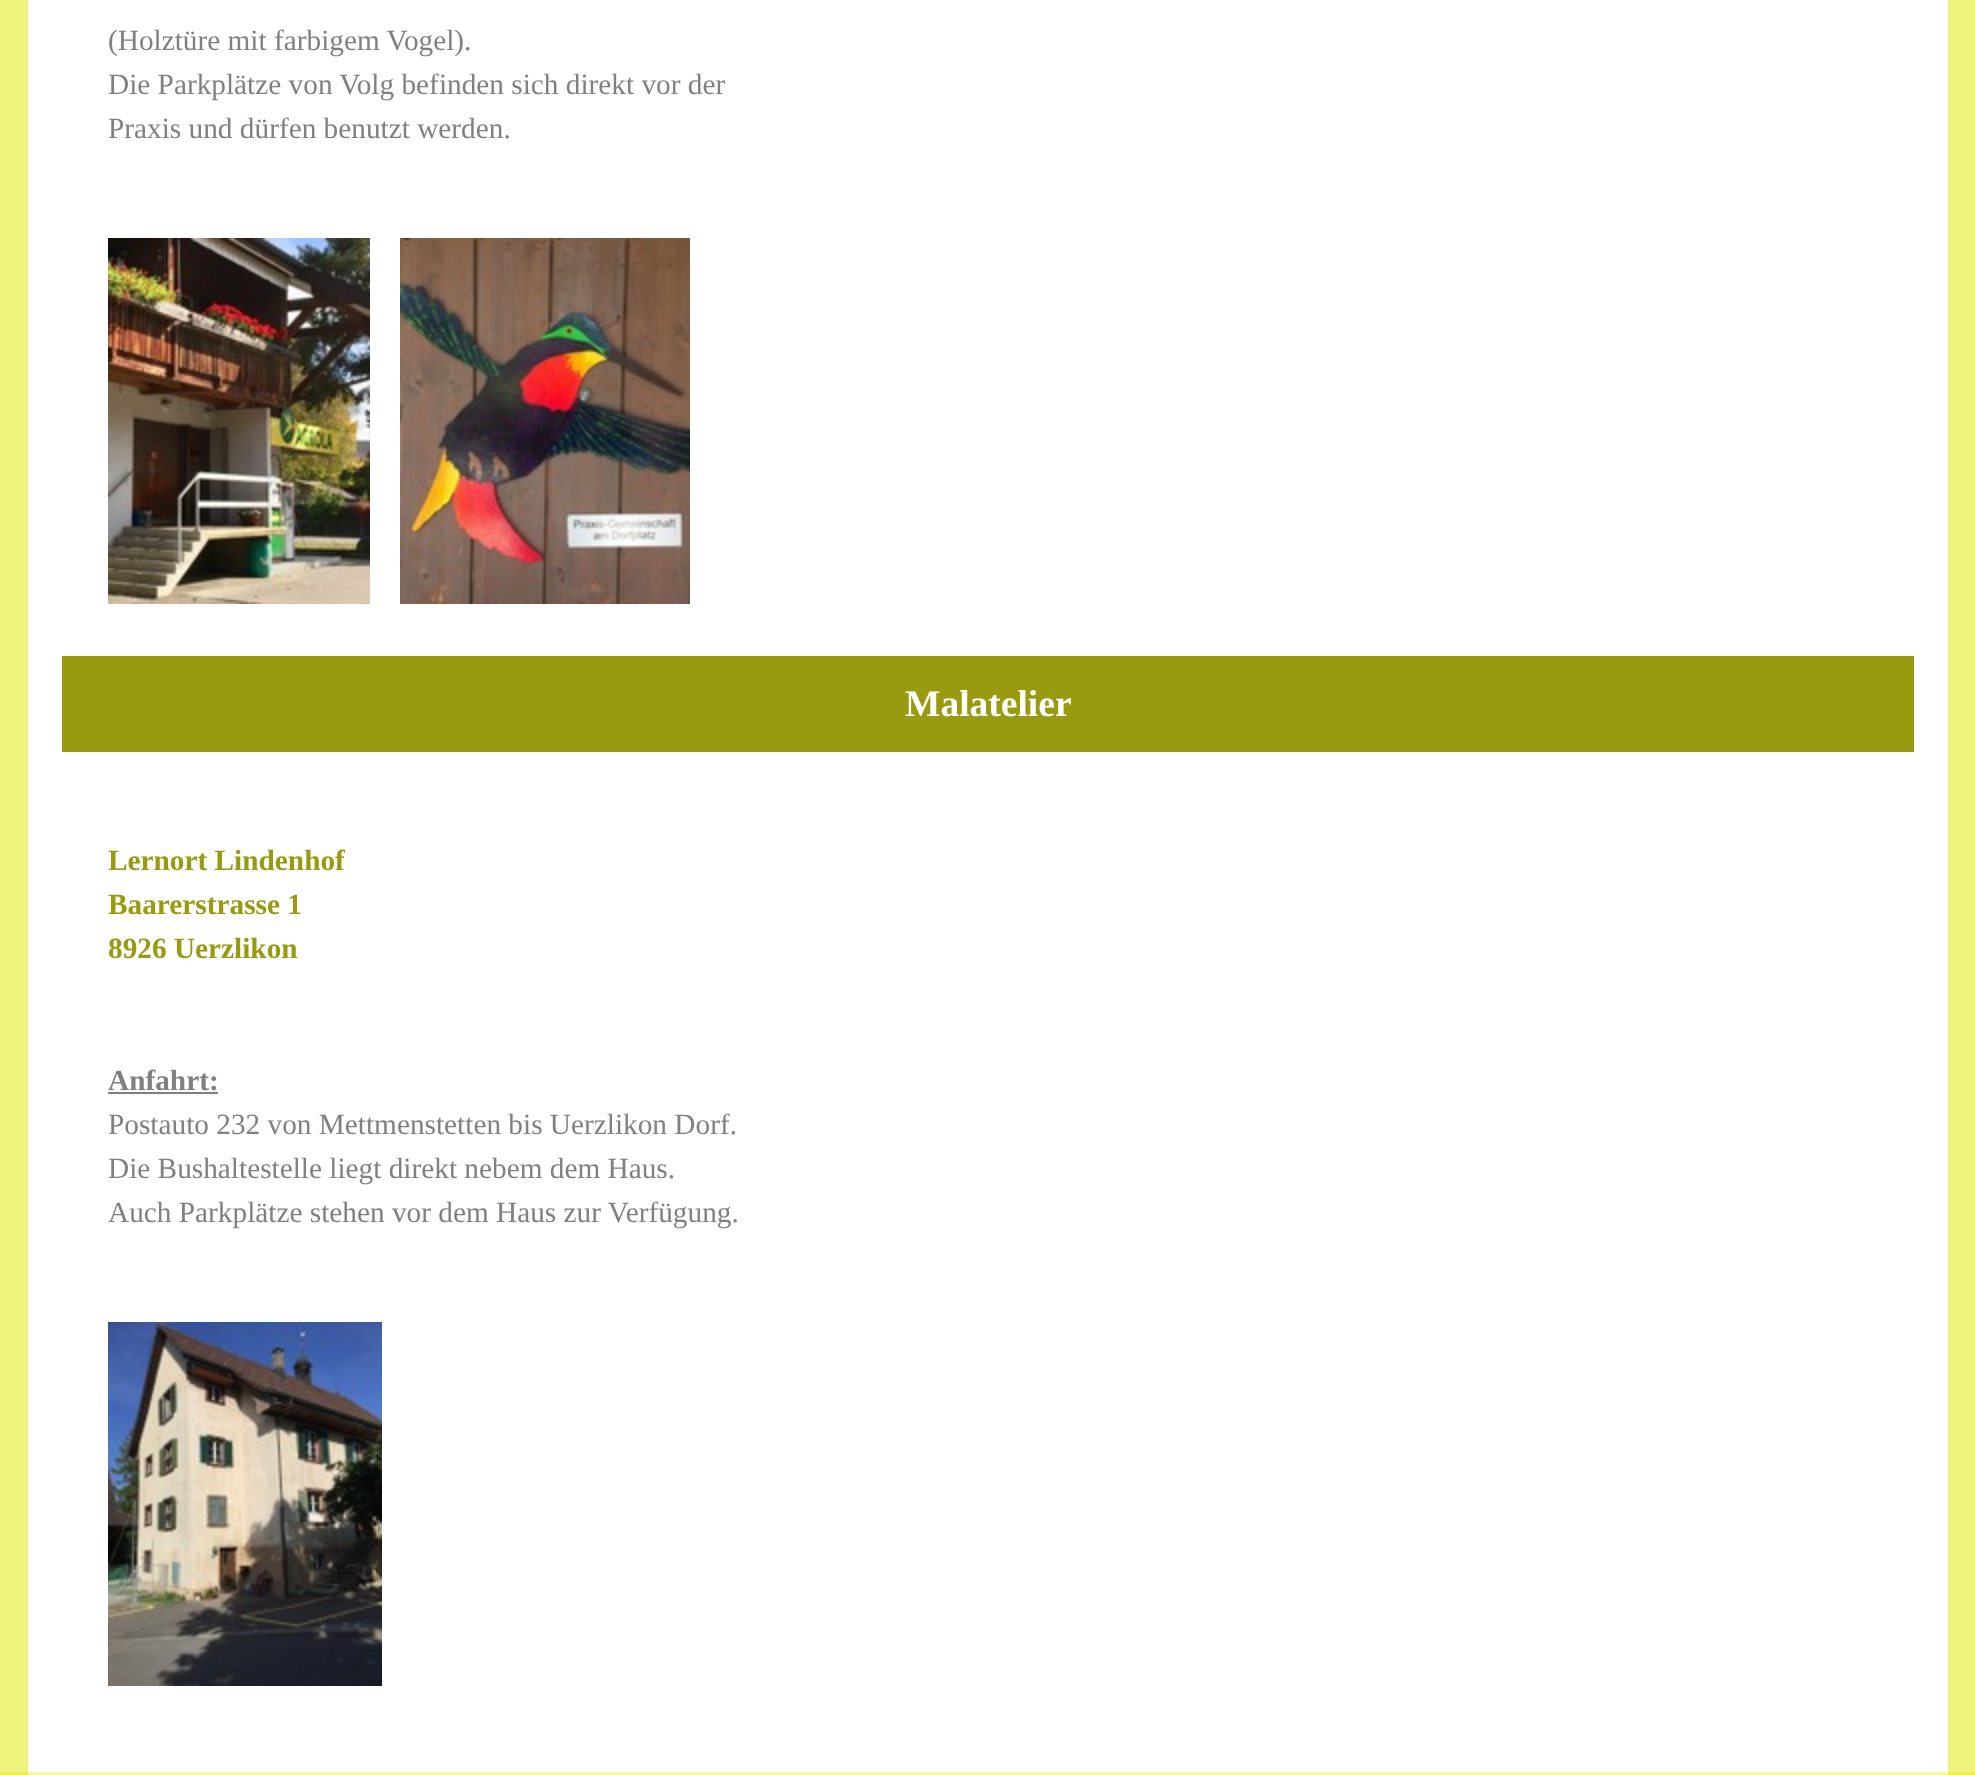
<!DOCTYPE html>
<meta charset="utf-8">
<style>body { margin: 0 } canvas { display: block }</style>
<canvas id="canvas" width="1975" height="1775"></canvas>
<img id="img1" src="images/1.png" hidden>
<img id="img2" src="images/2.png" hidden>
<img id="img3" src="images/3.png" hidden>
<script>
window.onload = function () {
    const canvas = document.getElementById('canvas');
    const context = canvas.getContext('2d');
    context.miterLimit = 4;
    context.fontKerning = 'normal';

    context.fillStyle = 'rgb(239, 242, 123)';
    context.fillRect(0, 0, 1975, 1775);
    context.fillStyle = 'rgb(255, 255, 255)';
    context.fillRect(28, 0, 1920, 1772);
    context.drawImage(document.getElementById('img1'), 108, 238, 262, 366);
    context.drawImage(document.getElementById('img2'), 400, 238, 290, 366);
    context.fillStyle = 'rgb(152, 155, 15)';
    context.fillRect(62, 656, 1852, 96);
    context.fillStyle = 'rgb(128, 128, 128)';
    context.fillRect(108, 1092, 110, 2);
    context.drawImage(document.getElementById('img3'), 108, 1322, 274, 364);
    context.fillStyle = 'rgb(234, 238, 87)';
    context.fillRect(0, 1772, 1975, 3);
    context.fillStyle = 'rgb(244, 247, 166)';
    context.fillRect(28, 1772, 1920, 3);
    context.font = '29.3px Liberation Serif';
    context.fillStyle = 'rgb(128, 128, 128)';
    context.fillText('(Holztüre mit farbigem Vogel).', 108, 50);
    context.fillText('Die Parkplätze von Volg befinden sich direkt vor der', 108, 94);
    context.fillText('Praxis und dürfen benutzt werden.', 108, 138);
    context.font = 'bold 37.5px Liberation Serif';
    context.fillStyle = 'rgb(255, 255, 255)';
    context.fillText('Malatelier', 905, 716);
    context.font = 'bold 29.3px Liberation Serif';
    context.fillStyle = 'rgb(152, 155, 15)';
    context.fillText('Lernort Lindenhof', 108, 870);
    context.fillText('Baarerstrasse 1', 108, 914);
    context.fillText('8926 Uerzlikon', 108, 958);
    context.fillStyle = 'rgb(128, 128, 128)';
    context.fillText('Anfahrt:', 108, 1090);
    context.font = '29.3px Liberation Serif';
    context.fillText('Postauto 232 von Mettmenstetten bis Uerzlikon Dorf.', 108, 1134);
    context.fillText('Die Bushaltestelle liegt direkt nebem dem Haus.', 108, 1178);
    context.fillText('Auch Parkplätze stehen vor dem Haus zur Verfügung.', 108, 1222);
};
</script>
